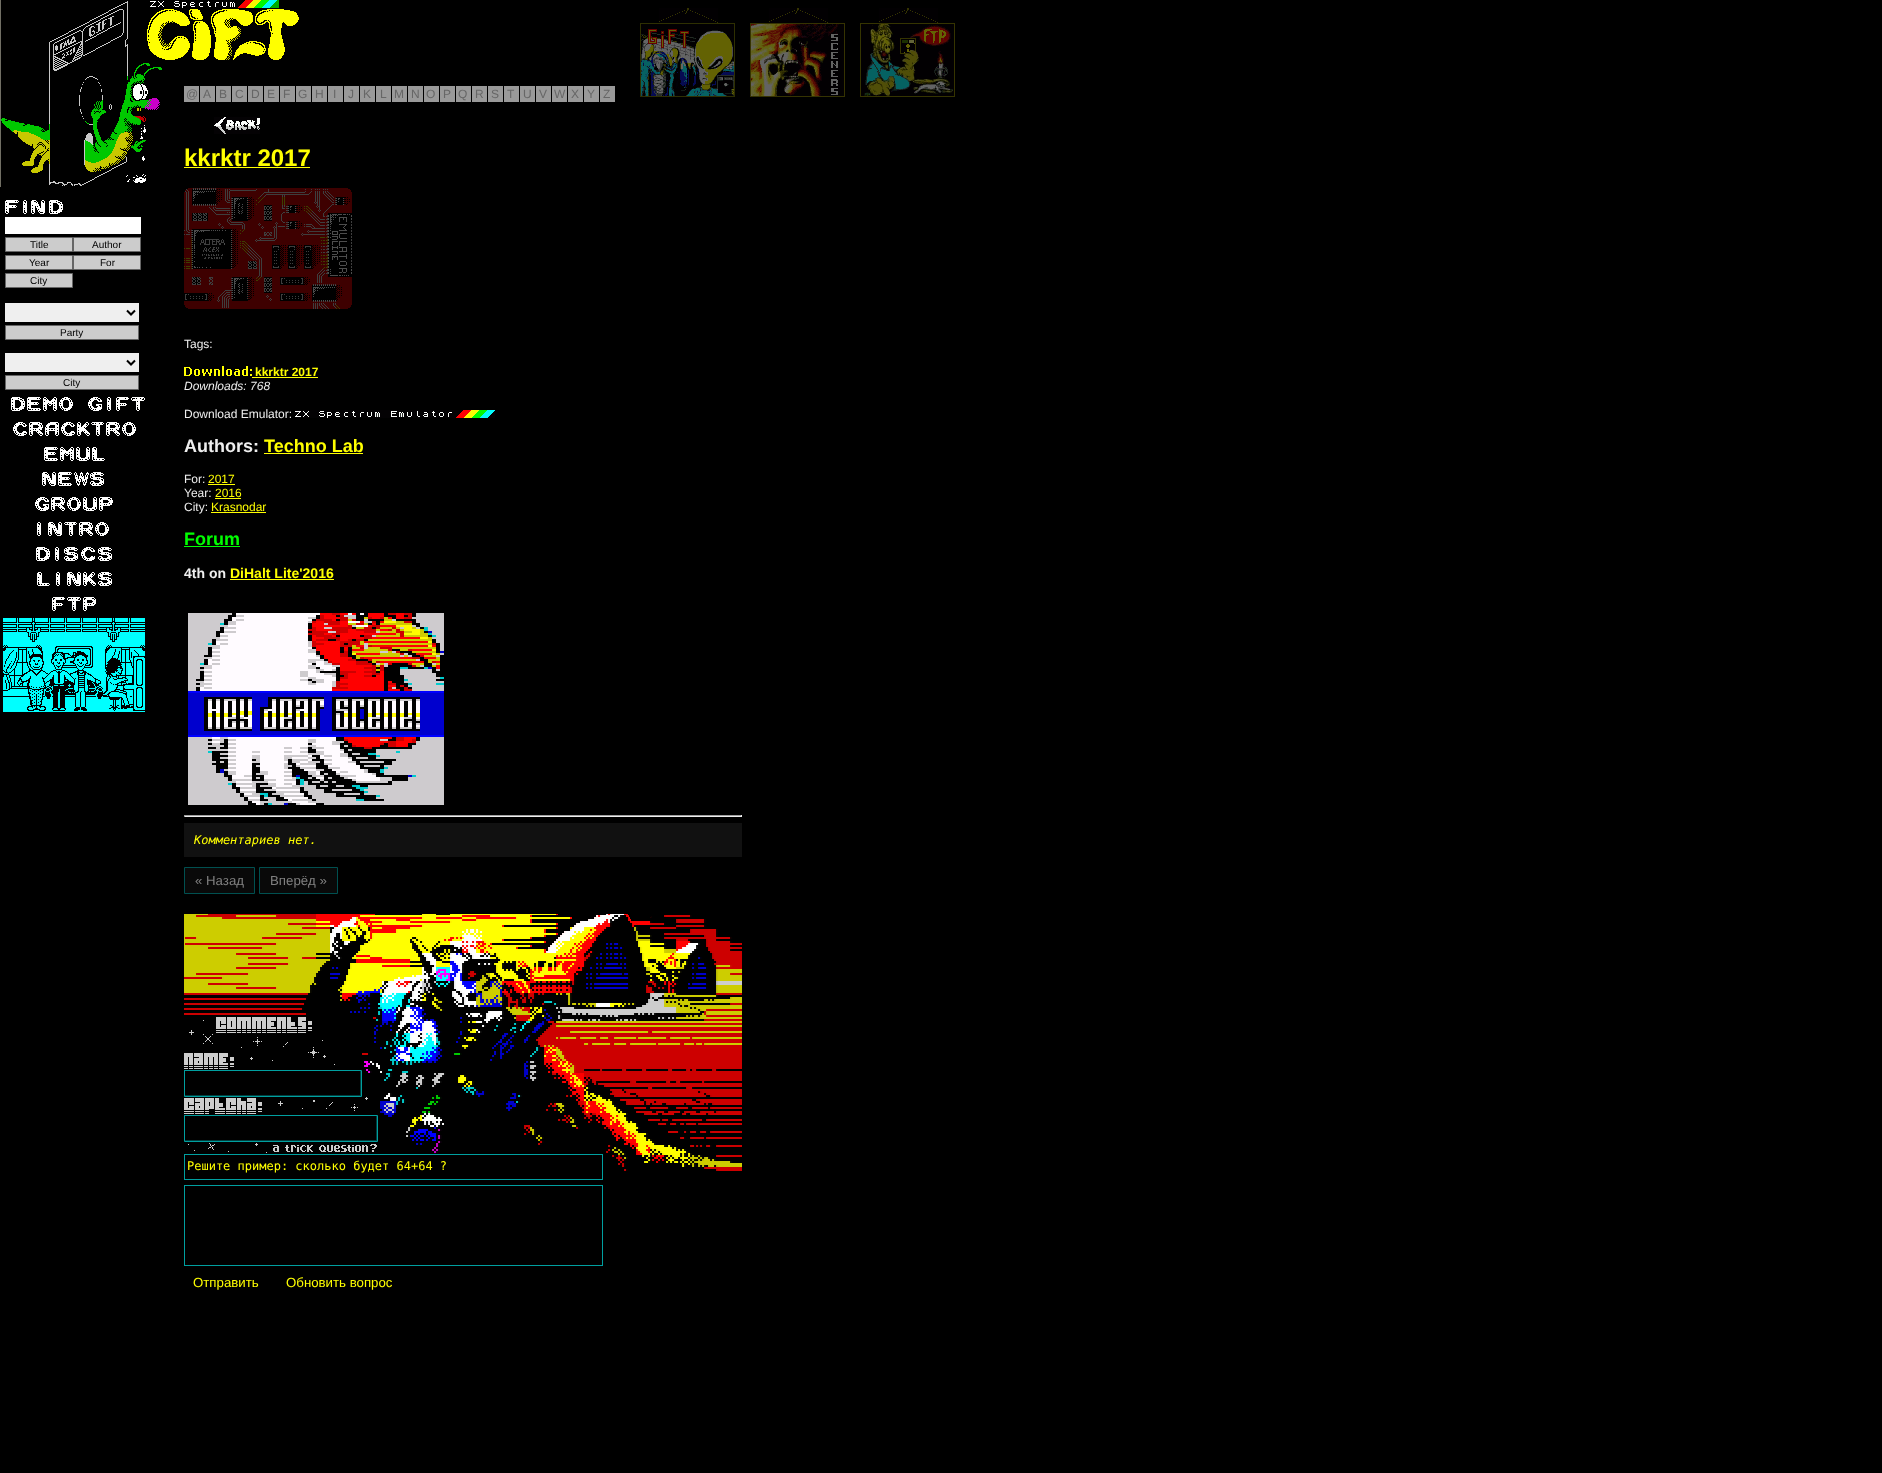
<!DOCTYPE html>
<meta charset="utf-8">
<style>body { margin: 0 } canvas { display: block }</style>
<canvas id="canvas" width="1882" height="1473"></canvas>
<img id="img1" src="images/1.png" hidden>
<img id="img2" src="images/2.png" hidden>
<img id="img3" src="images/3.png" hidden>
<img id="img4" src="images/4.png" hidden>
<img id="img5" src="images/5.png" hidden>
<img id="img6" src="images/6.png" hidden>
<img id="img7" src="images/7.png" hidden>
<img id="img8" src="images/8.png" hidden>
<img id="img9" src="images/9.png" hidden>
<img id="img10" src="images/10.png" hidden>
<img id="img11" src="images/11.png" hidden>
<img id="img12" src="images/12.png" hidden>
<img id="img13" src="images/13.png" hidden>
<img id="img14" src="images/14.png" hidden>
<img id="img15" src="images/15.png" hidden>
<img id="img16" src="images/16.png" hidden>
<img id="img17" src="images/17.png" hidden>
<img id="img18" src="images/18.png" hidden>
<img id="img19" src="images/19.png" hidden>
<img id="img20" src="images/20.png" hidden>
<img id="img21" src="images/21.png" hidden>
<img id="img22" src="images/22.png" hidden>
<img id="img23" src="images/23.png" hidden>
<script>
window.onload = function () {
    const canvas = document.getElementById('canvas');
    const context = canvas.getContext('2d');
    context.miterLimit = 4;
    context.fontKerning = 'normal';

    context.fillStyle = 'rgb(0, 0, 0)';
    context.fillRect(0, 0, 1882, 1473);
    context.drawImage(document.getElementById('img1'), 0, 0, 299, 187);
    context.fillStyle = 'rgb(153, 153, 153)';
    context.fillRect(184, 86, 15, 16);
    context.fillRect(200, 86, 15, 16);
    context.fillRect(216, 86, 15, 16);
    context.fillRect(232, 86, 15, 16);
    context.fillRect(248, 86, 15, 16);
    context.fillRect(264, 86, 15, 16);
    context.fillRect(280, 86, 15, 16);
    context.fillRect(296, 86, 15, 16);
    context.fillRect(312, 86, 15, 16);
    context.fillRect(328, 86, 15, 16);
    context.fillRect(344, 86, 15, 16);
    context.fillRect(360, 86, 15, 16);
    context.fillRect(376, 86, 15, 16);
    context.fillRect(392, 86, 15, 16);
    context.fillRect(408, 86, 15, 16);
    context.fillRect(424, 86, 15, 16);
    context.fillRect(440, 86, 15, 16);
    context.fillRect(456, 86, 15, 16);
    context.fillRect(472, 86, 15, 16);
    context.fillRect(488, 86, 15, 16);
    context.fillRect(504, 86, 15, 16);
    context.fillRect(520, 86, 15, 16);
    context.fillRect(536, 86, 15, 16);
    context.fillRect(552, 86, 15, 16);
    context.fillRect(568, 86, 15, 16);
    context.fillRect(584, 86, 15, 16);
    context.fillRect(600, 86, 15, 16);
    context.drawImage(document.getElementById('img2'), 659, 8, 59, 15);
    context.drawImage(document.getElementById('img3'), 640, 23, 95, 74);
    context.drawImage(document.getElementById('img2'), 769, 8, 59, 15);
    context.drawImage(document.getElementById('img4'), 750, 23, 95, 74);
    context.drawImage(document.getElementById('img2'), 879, 8, 59, 15);
    context.drawImage(document.getElementById('img5'), 860, 23, 95, 74);
    context.drawImage(document.getElementById('img6'), 5, 200, 58, 14);
    context.fillStyle = 'rgb(255, 255, 255)';
    context.fillRect(5, 217, 136, 17);
    context.fillStyle = 'rgb(204, 204, 204)';
    context.beginPath();
    context.rect(5.5, 237.5, 67, 14);
    context.fill();
    context.strokeStyle = 'rgb(102, 102, 102)';
    context.stroke();
    context.beginPath();
    context.rect(73.5, 237.5, 67, 14);
    context.fill();
    context.stroke();
    context.beginPath();
    context.rect(5.5, 255.5, 67, 14);
    context.fill();
    context.stroke();
    context.beginPath();
    context.rect(73.5, 255.5, 67, 14);
    context.fill();
    context.stroke();
    context.beginPath();
    context.rect(5.5, 273.5, 67, 14);
    context.fill();
    context.stroke();
    context.drawImage(document.getElementById('img7'), 214, 117, 46, 17);
    context.fillStyle = 'rgb(255, 255, 0)';
    context.fillRect(184, 167, 126, 1);
    context.drawImage(document.getElementById('img8'), 184, 188, 168, 121);
    context.drawImage(document.getElementById('img9'), 184, 366, 68, 10);
    context.fillRect(252, 377, 66, 1);
    context.drawImage(document.getElementById('img10'), 295, 410, 200, 8);
    context.fillRect(264, 453, 99, 1);
    context.fillRect(208, 484, 27, 1);
    context.fillRect(215, 498, 26, 1);
    context.fillRect(211, 512, 55, 1);
    context.fillStyle = 'rgb(0, 254, 0)';
    context.fillRect(184, 546, 56, 1);
    context.fillStyle = 'rgb(255, 255, 0)';
    context.fillRect(230, 579, 104, 1);
    context.drawImage(document.getElementById('img11'), 188, 613, 256, 192);
    context.fillStyle = 'rgb(159, 159, 159)';
    context.fillRect(184, 815, 558, 1);
    context.fillStyle = 'rgb(238, 238, 238)';
    context.fillRect(741, 815, 1, 2);
    context.fillRect(184, 816, 558, 1);
    context.fillStyle = 'rgb(159, 159, 159)';
    context.fillRect(184, 815, 1, 2);
    context.fillStyle = 'rgb(17, 17, 17)';
    context.fillRect(184, 823, 558, 34);
    context.fillStyle = 'rgb(9, 9, 9)';
    context.beginPath();
    context.rect(184.5, 867.5, 70, 26);
    context.fill();
    context.strokeStyle = 'rgb(0, 80, 80)';
    context.stroke();
    context.beginPath();
    context.rect(259.5, 867.5, 78, 26);
    context.fill();
    context.stroke();
    context.drawImage(document.getElementById('img12'), 184, 914, 558, 266);
    context.fillStyle = 'rgba(0, 0, 0, 0.6)';
    context.beginPath();
    context.rect(184.5, 1070.5, 177, 26);
    context.fill();
    context.strokeStyle = 'rgb(0, 159, 159)';
    context.stroke();
    context.beginPath();
    context.rect(184.5, 1115.5, 193, 26);
    context.fill();
    context.stroke();
    context.strokeRect(184.5, 1185.5, 418, 80);
    context.fillStyle = 'rgb(239, 239, 239)';
    context.fillRect(5, 303, 134, 19);
    context.beginPath();
    context.moveTo(127, 310.5);
    context.lineTo(131, 314.5);
    context.lineTo(135, 310.5);
    context.strokeStyle = 'rgb(0, 0, 0)';
    context.lineWidth = 2;
    context.stroke();
    context.fillStyle = 'rgb(204, 204, 204)';
    context.beginPath();
    context.rect(5.5, 325.5, 133, 14);
    context.fill();
    context.strokeStyle = 'rgb(102, 102, 102)';
    context.lineWidth = 1;
    context.stroke();
    context.fillStyle = 'rgb(239, 239, 239)';
    context.fillRect(5, 353, 134, 19);
    context.beginPath();
    context.moveTo(127, 360.5);
    context.lineTo(131, 364.5);
    context.lineTo(135, 360.5);
    context.strokeStyle = 'rgb(0, 0, 0)';
    context.lineWidth = 2;
    context.stroke();
    context.fillStyle = 'rgb(204, 204, 204)';
    context.beginPath();
    context.rect(5.5, 375.5, 133, 14);
    context.fill();
    context.strokeStyle = 'rgb(102, 102, 102)';
    context.lineWidth = 1;
    context.stroke();
    context.drawImage(document.getElementById('img13'), 11, 397, 62, 14);
    context.drawImage(document.getElementById('img14'), 88, 397, 57, 14);
    context.drawImage(document.getElementById('img15'), 13, 422, 123, 14);
    context.drawImage(document.getElementById('img16'), 44, 447, 61, 14);
    context.drawImage(document.getElementById('img17'), 42, 472, 62, 14);
    context.drawImage(document.getElementById('img18'), 35, 497, 78, 14);
    context.drawImage(document.getElementById('img19'), 37, 522, 72, 14);
    context.drawImage(document.getElementById('img20'), 36, 547, 76, 14);
    context.drawImage(document.getElementById('img21'), 37, 572, 75, 14);
    context.drawImage(document.getElementById('img22'), 52, 597, 44, 14);
    context.drawImage(document.getElementById('img23'), 3, 618, 142, 94);
    context.font = '12px Liberation Sans';
    context.fillStyle = 'rgb(102, 102, 102)';
    context.fillText('@', 186, 98);
    context.fillText('A', 203, 98);
    context.fillText('B', 219, 98);
    context.fillText('C', 235, 98);
    context.fillText('D', 251, 98);
    context.fillText('E', 267, 98);
    context.fillText('F', 283, 98);
    context.fillText('G', 298, 98);
    context.fillText('H', 315, 98);
    context.fillText('I', 333, 98);
    context.fillText('J', 348, 98);
    context.fillText('K', 363, 98);
    context.fillText('L', 380, 98);
    context.fillText('M', 394, 98);
    context.fillText('N', 411, 98);
    context.fillText('O', 426, 98);
    context.fillText('P', 443, 98);
    context.fillText('Q', 458, 98);
    context.fillText('R', 475, 98);
    context.fillText('S', 491, 98);
    context.fillText('T', 507, 98);
    context.fillText('U', 523, 98);
    context.fillText('V', 539, 98);
    context.fillText('W', 554, 98);
    context.fillText('X', 571, 98);
    context.fillText('Y', 587, 98);
    context.fillText('Z', 603, 98);
    context.font = '10px Liberation Sans';
    context.fillStyle = 'rgb(0, 0, 0)';
    context.fillText('Title', 30, 248);
    context.fillText('Author', 92, 248);
    context.fillText('Year', 29, 266);
    context.fillText('For', 100, 266);
    context.fillText('City', 30, 284);
    context.font = 'bold 24px Liberation Sans';
    context.fillStyle = 'rgb(255, 255, 0)';
    context.fillText('kkrktr 2017', 184, 166);
    context.font = '12px Liberation Sans';
    context.fillStyle = 'rgb(238, 238, 238)';
    context.fillText('Tags:', 184, 348);
    context.font = 'bold 12px Liberation Sans';
    context.fillStyle = 'rgb(255, 255, 0)';
    context.fillText('kkrktr 2017', 255, 376);
    context.font = 'italic 12px Liberation Sans';
    context.fillStyle = 'rgb(238, 238, 238)';
    context.fillText('Downloads: 768', 184, 390);
    context.font = '12px Liberation Sans';
    context.fillText('Download Emulator:', 184, 418);
    context.font = 'bold 18px Liberation Sans';
    context.fillText('Authors:', 184, 452);
    context.fillStyle = 'rgb(255, 255, 0)';
    context.fillText('Techno Lab', 264, 452);
    context.font = '12px Liberation Sans';
    context.fillStyle = 'rgb(238, 238, 238)';
    context.fillText('For:', 184, 483);
    context.fillStyle = 'rgb(255, 255, 0)';
    context.fillText('2017', 208, 483);
    context.fillStyle = 'rgb(238, 238, 238)';
    context.fillText('Year:', 184, 497);
    context.fillStyle = 'rgb(255, 255, 0)';
    context.fillText('2016', 215, 497);
    context.fillStyle = 'rgb(238, 238, 238)';
    context.fillText('City:', 184, 511);
    context.fillStyle = 'rgb(255, 255, 0)';
    context.fillText('Krasnodar', 211, 511);
    context.font = 'bold 18px Liberation Sans';
    context.fillStyle = 'rgb(0, 254, 0)';
    context.fillText('Forum', 184, 545);
    context.font = 'bold 14px Liberation Sans';
    context.fillStyle = 'rgb(238, 238, 238)';
    context.fillText('4th on', 184, 578);
    context.fillStyle = 'rgb(255, 255, 0)';
    context.fillText('DiHalt Lite\'2016', 230, 578);
    context.font = 'italic 12px DejaVu Sans Mono';
    context.fillText('Комментариев нет.', 194, 844);
    context.font = '13.25px Liberation Sans';
    context.fillStyle = 'rgb(128, 128, 128)';
    context.fillText('« Назад', 195, 885);
    context.fillText('Вперёд »', 270, 885);
    context.font = '12px DejaVu Sans Mono';
    context.fillStyle = 'rgb(255, 255, 0)';
    context.fillText('Решите пример: сколько будет 64+64 ?', 187, 1170);
    context.font = '13.25px Liberation Sans';
    context.fillText('Отправить', 193, 1287);
    context.fillText('Обновить вопрос', 286, 1287);
    context.font = '10px Liberation Sans';
    context.fillStyle = 'rgb(0, 0, 0)';
    context.fillText('Party', 60, 336);
    context.fillText('City', 63, 386);
};
</script>
